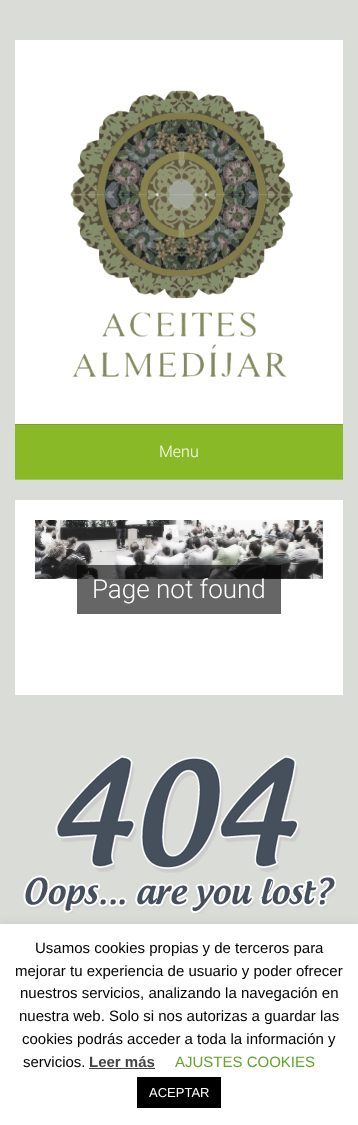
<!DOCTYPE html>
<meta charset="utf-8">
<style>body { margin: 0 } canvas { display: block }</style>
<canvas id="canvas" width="358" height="1125"></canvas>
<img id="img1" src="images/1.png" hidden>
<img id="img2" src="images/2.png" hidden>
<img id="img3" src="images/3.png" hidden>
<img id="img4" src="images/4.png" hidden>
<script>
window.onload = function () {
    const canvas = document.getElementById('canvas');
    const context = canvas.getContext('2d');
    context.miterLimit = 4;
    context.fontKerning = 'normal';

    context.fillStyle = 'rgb(217, 220, 215)';
    context.fillRect(0, 0, 358, 1125);
    context.fillStyle = 'rgb(255, 255, 255)';
    context.fillRect(15, 40, 328, 384);
    context.drawImage(document.getElementById('img1'), 70, 90, 223, 287);
    context.fillStyle = 'rgb(138, 185, 40)';
    context.fillRect(15, 425, 328, 54);
    context.fillStyle = 'rgb(122, 159, 43)';
    context.fillRect(15, 424, 328, 1);
    context.fillStyle = 'rgb(161, 199, 83)';
    context.fillRect(15, 479, 328, 1);
    context.fillStyle = 'rgb(255, 255, 255)';
    context.fillRect(15, 500, 328, 195);
    context.drawImage(document.getElementById('img2'), 35, 520, 288, 59);
    context.fillStyle = 'rgba(0, 0, 0, 0.6)';
    context.fillRect(77, 565, 204, 49);
    context.drawImage(document.getElementById('img3'), 55, 755, 246, 118);
    context.drawImage(document.getElementById('img4'), 23, 875, 313, 39);
    context.fillStyle = 'rgba(172, 171, 171, 0.3)';
    context.filter = 'blur(5px)';
    context.beginPath();
    context.rect(0, 923, 358, 201);
    context.fill();
    context.filter = 'none';
    context.fillStyle = 'rgb(255, 255, 255)';
    context.fillRect(0, 924, 358, 201);
    context.fillStyle = 'rgb(68, 68, 68)';
    context.fillRect(89, 1068, 66, 1);
    context.fillStyle = 'rgb(0, 0, 0)';
    context.fillRect(137, 1077, 84, 31);
    context.font = '300 16px Roboto';
    context.fillStyle = 'rgb(255, 255, 255)';
    context.fillText('Menu', 159, 457);
    context.font = '300 26px Roboto';
    context.fillText('Page not found', 92, 598);
    context.font = '15px Liberation Sans';
    context.fillStyle = 'rgb(0, 0, 0)';
    context.fillText('Usamos cookies propias y de terceros para', 35, 953);
    context.fillText('mejorar tu experiencia de usuario y poder ofrecer', 15, 976);
    context.fillText('nuestros servicios, analizando la navegación en', 20, 998);
    context.fillText('nuestra web. Solo si nos autorizas a guardar las', 19, 1021);
    context.fillText('cookies podrás acceder a toda la información y', 22, 1044);
    context.fillText('servicios.', 23, 1067);
    context.font = 'bold 15px Liberation Sans';
    context.fillStyle = 'rgb(68, 68, 68)';
    context.fillText('Leer más', 89, 1067);
    context.font = '15px Liberation Sans';
    context.fillStyle = 'rgb(98, 163, 41)';
    context.fillText('AJUSTES COOKIES', 175, 1067);
    context.font = '13px Liberation Sans';
    context.fillStyle = 'rgb(255, 255, 255)';
    context.fillText('ACEPTAR', 149, 1097);
};
</script>
